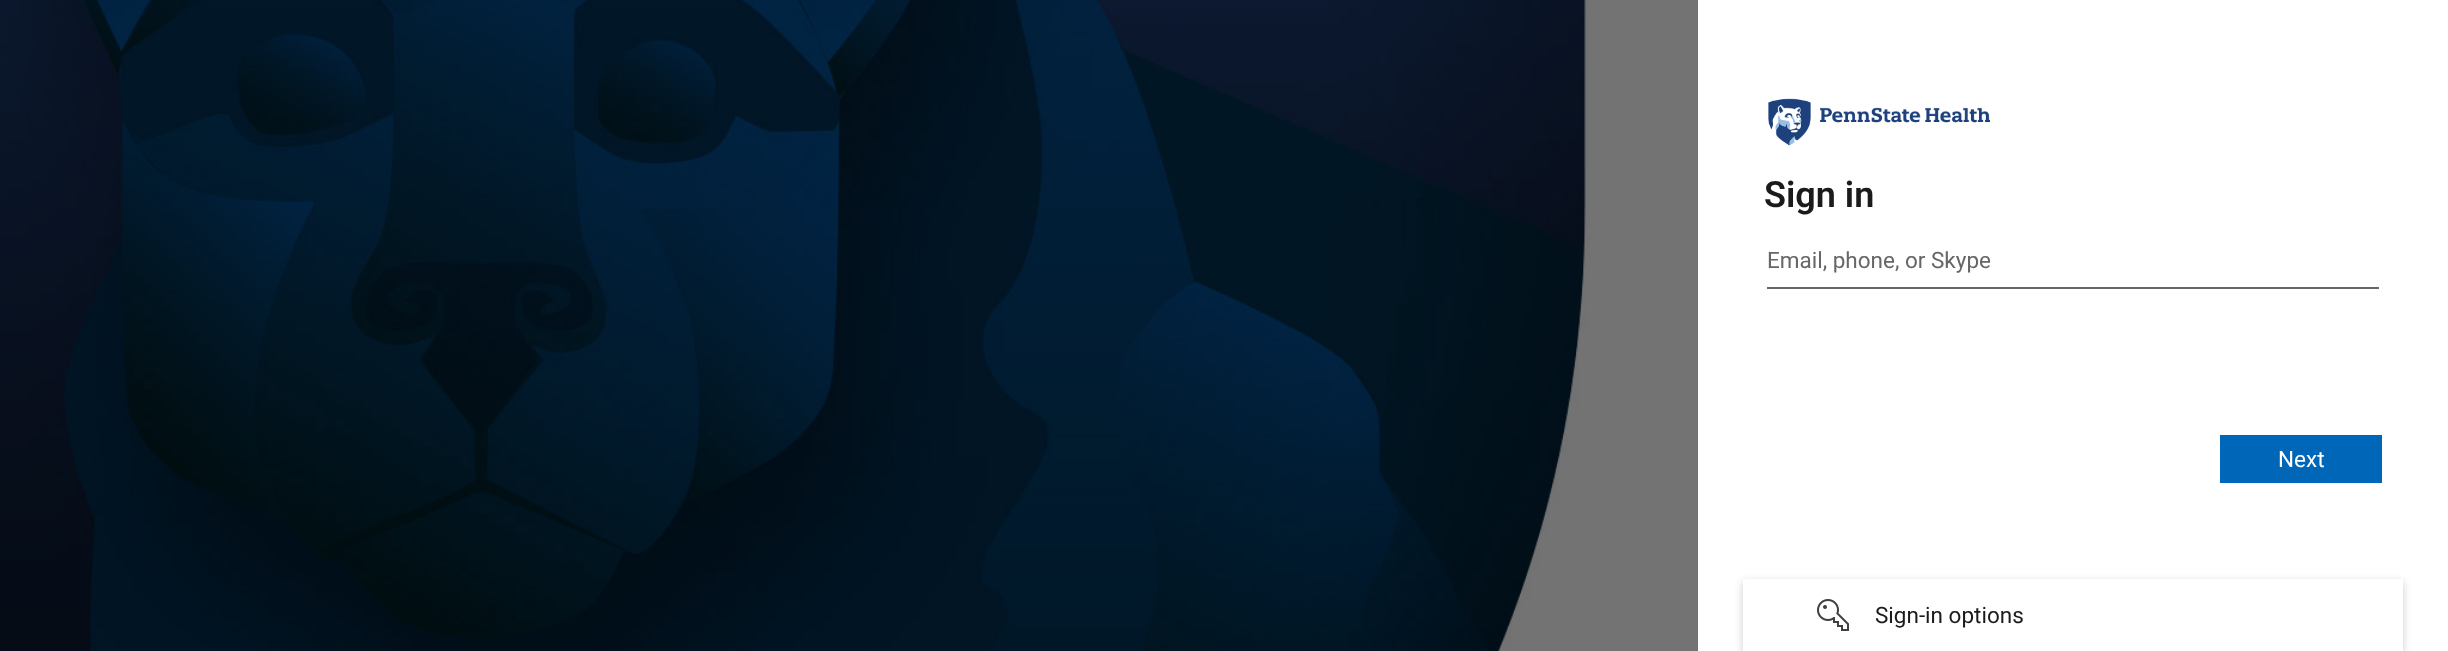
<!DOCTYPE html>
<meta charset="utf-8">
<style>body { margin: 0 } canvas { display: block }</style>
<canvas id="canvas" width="2448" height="651"></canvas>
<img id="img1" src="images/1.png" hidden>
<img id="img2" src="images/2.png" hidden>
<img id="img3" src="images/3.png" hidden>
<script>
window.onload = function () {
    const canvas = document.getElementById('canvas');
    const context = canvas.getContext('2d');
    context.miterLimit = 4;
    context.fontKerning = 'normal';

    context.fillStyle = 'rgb(255, 255, 255)';
    context.fillRect(0, 0, 2448, 651);
    context.drawImage(document.getElementById('img1'), 0, 0, 1698, 651);
    context.drawImage(document.getElementById('img2'), 1768, 98, 222, 48);
    context.fillStyle = 'rgb(102, 102, 102)';
    context.fillRect(1767, 287, 612, 2);
    context.fillStyle = 'rgb(0, 103, 184)';
    context.fillRect(2220, 435, 162, 48);
    context.save();
    context.beginPath();
    context.moveTo(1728, 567);
    context.lineTo(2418, 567);
    context.lineTo(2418, 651);
    context.lineTo(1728, 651);
    context.closePath();
    context.moveTo(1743, 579);
    context.lineTo(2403, 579);
    context.lineTo(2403, 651);
    context.lineTo(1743, 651);
    context.closePath();
    context.clip('evenodd');
    context.fillStyle = 'rgba(0, 0, 0, 0.2)';
    context.filter = 'blur(4.5px)';
    context.beginPath();
    context.rect(1743, 582, 660, 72);
    context.fill();
    context.filter = 'none';
    context.restore();
    context.drawImage(document.getElementById('img3'), 1817, 599, 32, 32);
    context.font = '600 36px Roboto';
    context.fillStyle = 'rgb(27, 27, 27)';
    context.fillText('Sign in', 1764, 207);
    context.font = '22.5px Roboto';
    context.fillStyle = 'rgb(102, 102, 102)';
    context.fillText('Email, phone, or Skype', 1767, 268);
    context.fillStyle = 'rgb(255, 255, 255)';
    context.fillText('Next', 2278, 467);
    context.fillStyle = 'rgb(27, 27, 27)';
    context.fillText('Sign-in options', 1875, 623);
};
</script>
